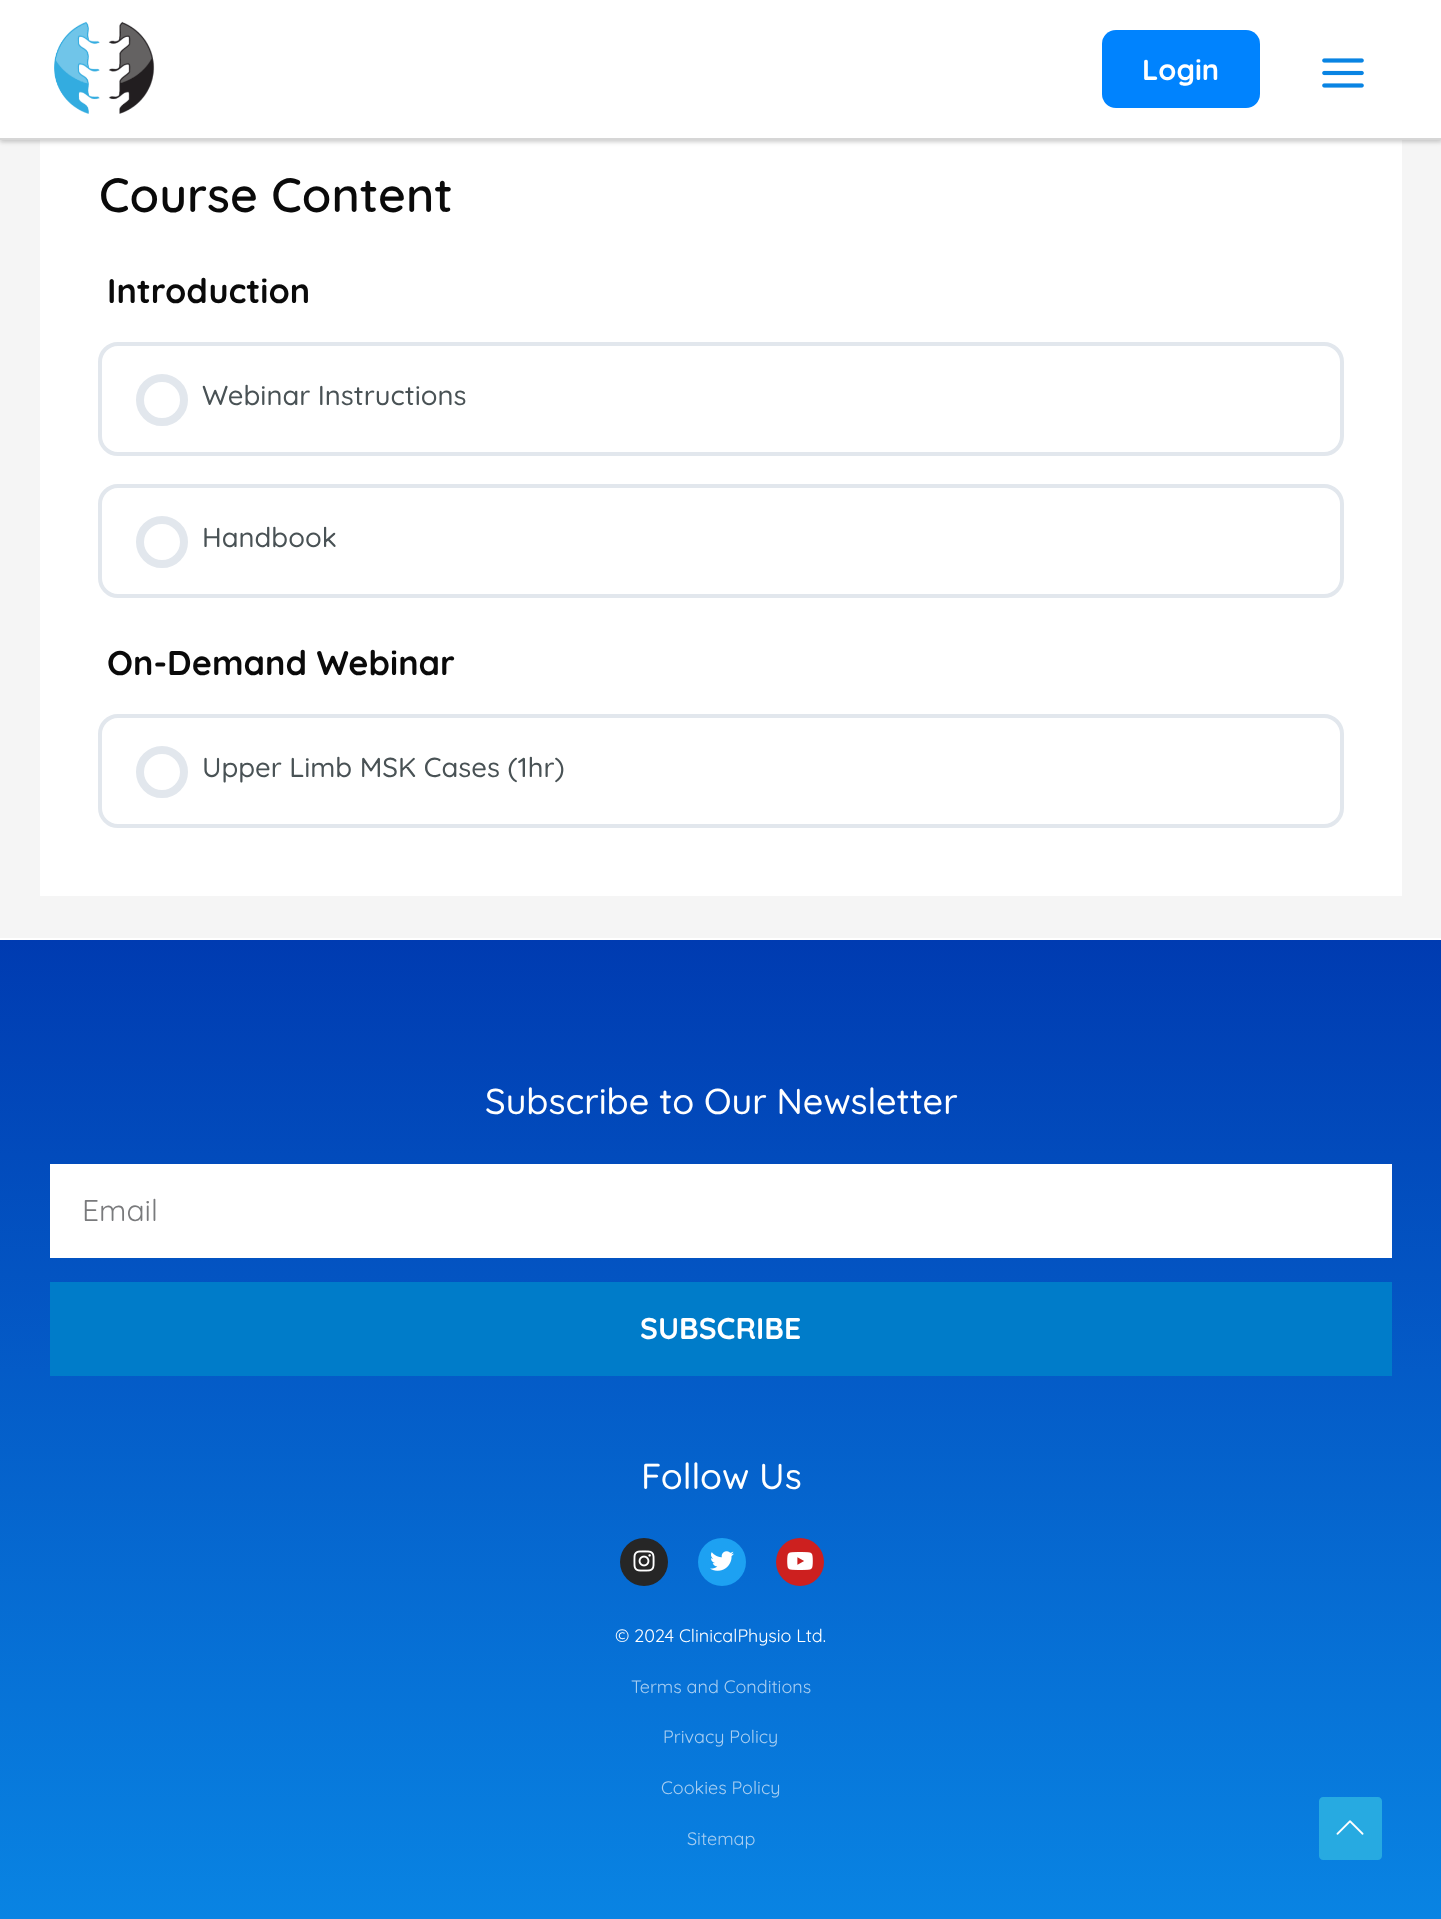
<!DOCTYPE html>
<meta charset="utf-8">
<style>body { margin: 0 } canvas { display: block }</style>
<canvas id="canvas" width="1441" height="1919"></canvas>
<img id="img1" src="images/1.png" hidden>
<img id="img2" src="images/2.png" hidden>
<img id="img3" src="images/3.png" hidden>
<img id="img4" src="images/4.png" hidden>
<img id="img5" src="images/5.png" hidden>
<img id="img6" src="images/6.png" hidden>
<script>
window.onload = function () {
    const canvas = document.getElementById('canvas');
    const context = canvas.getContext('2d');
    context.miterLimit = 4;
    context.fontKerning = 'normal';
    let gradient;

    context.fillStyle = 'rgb(245, 245, 245)';
    context.fillRect(0, 0, 1441, 1919);
    context.fillStyle = 'rgb(255, 255, 255)';
    context.fillRect(40, 140, 1362, 756);
    context.fillStyle = 'rgba(0, 0, 0, 0.2)';
    context.filter = 'blur(2px)';
    context.beginPath();
    context.rect(0, 2, 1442, 140);
    context.fill();
    context.filter = 'none';
    context.fillStyle = 'rgb(255, 255, 255)';
    context.fillRect(0, 0, 1441, 138);
    context.fillStyle = 'rgb(214, 214, 214)';
    context.fillRect(0, 138, 1441, 2);
    context.drawImage(document.getElementById('img1'), 54, 21, 101, 93);
    context.fillStyle = 'rgb(0, 131, 254)';
    context.beginPath();
    context.roundRect(1102, 30, 158, 78, 14);
    context.fill();
    context.drawImage(document.getElementById('img2'), 1322, 58, 42, 30);
    context.beginPath();
    context.roundRect(100, 344, 1242, 110, 18);
    context.strokeStyle = 'rgb(226, 231, 237)';
    context.lineWidth = 4;
    context.stroke();
    context.beginPath();
    context.arc(162, 400, 22, 0, 2 * Math.PI);
    context.lineWidth = 8;
    context.stroke();
    context.beginPath();
    context.roundRect(100, 486, 1242, 110, 18);
    context.lineWidth = 4;
    context.stroke();
    context.beginPath();
    context.arc(162, 542, 22, 0, 2 * Math.PI);
    context.lineWidth = 8;
    context.stroke();
    context.beginPath();
    context.roundRect(100, 716, 1242, 110, 18);
    context.lineWidth = 4;
    context.stroke();
    context.beginPath();
    context.arc(162, 772, 22, 0, 2 * Math.PI);
    context.lineWidth = 8;
    context.stroke();
    gradient = context.createLinearGradient(721, 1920, 721, 940);
    gradient.addColorStop(0, 'rgb(9, 132, 227)');
    gradient.addColorStop(1, 'rgb(0, 59, 177)');
    context.fillStyle = gradient;
    context.fillRect(0, 940, 1441, 979);
    context.fillStyle = 'rgb(255, 255, 255)';
    context.fillRect(0, 938, 1441, 2);
    context.fillRect(50, 1164, 1342, 94);
    context.fillStyle = 'rgb(0, 124, 201)';
    context.fillRect(50, 1282, 1342, 94);
    context.fillStyle = 'rgb(38, 38, 38)';
    context.beginPath();
    context.arc(644, 1562, 24, 0, 2 * Math.PI);
    context.fill();
    context.drawImage(document.getElementById('img3'), 633, 1550, 22, 22);
    context.fillStyle = 'rgb(29, 161, 242)';
    context.beginPath();
    context.arc(722, 1562, 24, 0, 2 * Math.PI);
    context.fill();
    context.drawImage(document.getElementById('img4'), 710, 1551, 24, 20);
    context.fillStyle = 'rgb(205, 32, 31)';
    context.beginPath();
    context.arc(800, 1562, 24, 0, 2 * Math.PI);
    context.fill();
    context.drawImage(document.getElementById('img5'), 787, 1552, 26, 18);
    context.fillStyle = 'rgb(39, 170, 225)';
    context.beginPath();
    context.moveTo(1378, 1860);
    context.lineTo(1323, 1860);
    context.bezierCurveTo(1321, 1860, 1319, 1858, 1319, 1856);
    context.lineTo(1319, 1801);
    context.bezierCurveTo(1319, 1799, 1321, 1797, 1323, 1797);
    context.lineTo(1378, 1797);
    context.bezierCurveTo(1380, 1797, 1382, 1799, 1382, 1801);
    context.lineTo(1382, 1856);
    context.bezierCurveTo(1382, 1858, 1380, 1860, 1378, 1860);
    context.closePath();
    context.fill();
    context.drawImage(document.getElementById('img6'), 1336, 1820, 28, 15);
    context.font = 'bold 29px Quicksand';
    context.fillStyle = 'rgb(255, 255, 255)';
    context.fillText('Login', 1142, 80);
    context.font = '600 48px Quicksand';
    context.fillStyle = 'rgb(10, 10, 10)';
    context.fillText('Course Content', 99, 212);
    context.font = 'bold 34.25px Quicksand';
    context.fillText('Introduction', 107, 303);
    context.font = '500 27.4px Quicksand';
    context.fillStyle = 'rgb(73, 82, 85)';
    context.fillText('Webinar Instructions', 202, 405);
    context.fillText('Handbook', 202, 547);
    context.font = 'bold 34.25px Quicksand';
    context.fillStyle = 'rgb(10, 10, 10)';
    context.fillText('On-Demand Webinar', 107, 675);
    context.font = '500 27.4px Quicksand';
    context.fillStyle = 'rgb(73, 82, 85)';
    context.fillText('Upper Limb MSK Cases (1hr)', 202, 777);
    context.font = '500 36px Quicksand';
    context.fillStyle = 'rgb(255, 255, 255)';
    context.fillText('Subscribe to Our Newsletter', 485, 1114);
    context.font = '30px Quicksand';
    context.fillStyle = 'rgb(121, 122, 124)';
    context.fillText('Email', 82, 1221);
    context.font = 'bold 30px Quicksand';
    context.fillStyle = 'rgb(255, 255, 255)';
    context.fillText('SUBSCRIBE', 640, 1339);
    context.font = '500 36px Quicksand';
    context.fillText('Follow Us', 641, 1489);
    context.font = '18px Quicksand';
    context.fillText('© 2024 ClinicalPhysio Ltd.', 615, 1642);
    context.fillStyle = 'rgb(168, 206, 241)';
    context.fillText('Terms and Conditions', 631, 1693);
    context.fillText('Privacy Policy', 663, 1743);
    context.fillText('Cookies Policy', 661, 1794);
    context.fillText('Sitemap', 687, 1845);
};
</script>
